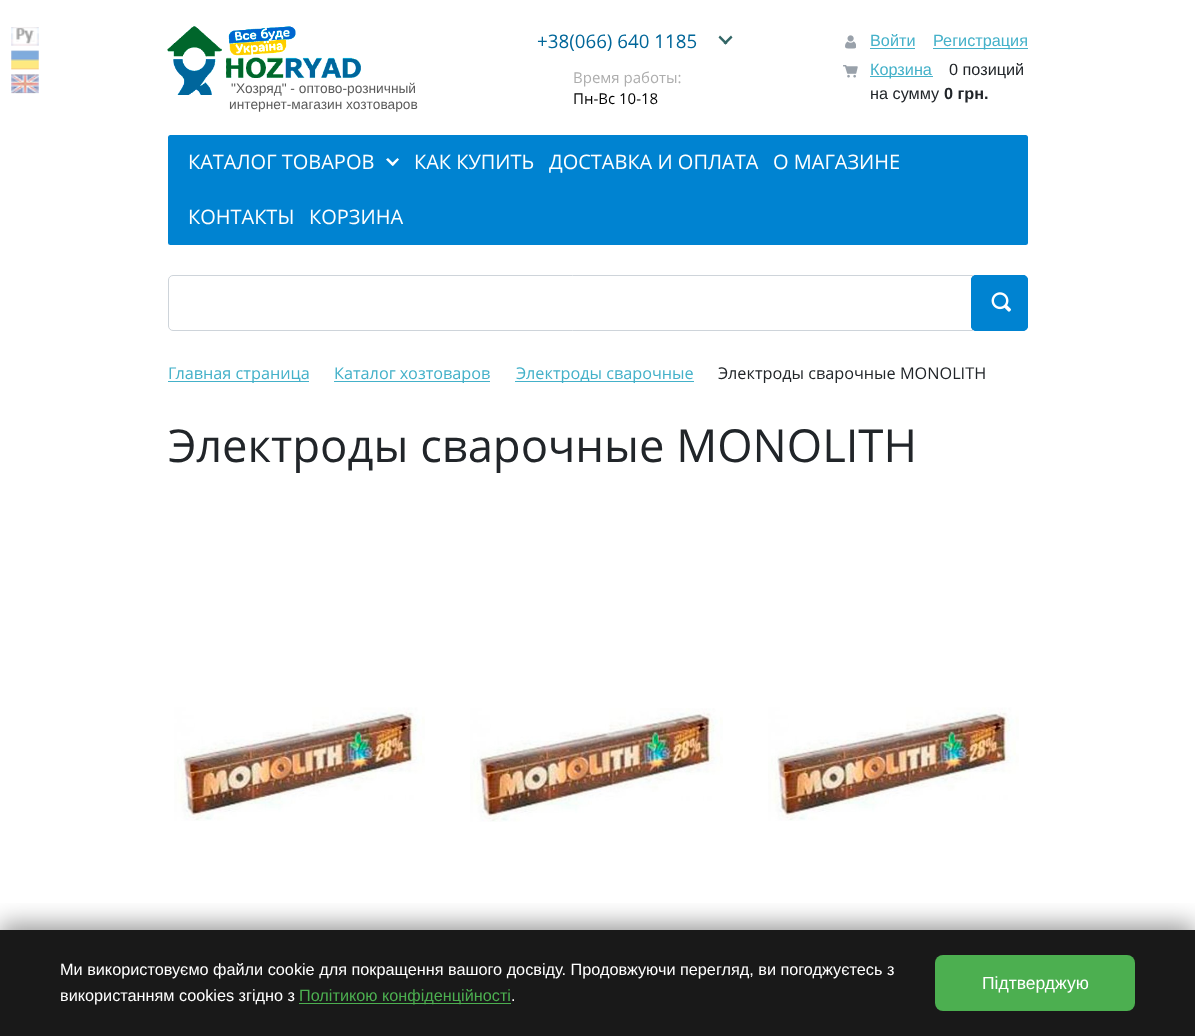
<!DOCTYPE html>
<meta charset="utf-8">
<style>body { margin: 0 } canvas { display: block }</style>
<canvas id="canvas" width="1195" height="1036"></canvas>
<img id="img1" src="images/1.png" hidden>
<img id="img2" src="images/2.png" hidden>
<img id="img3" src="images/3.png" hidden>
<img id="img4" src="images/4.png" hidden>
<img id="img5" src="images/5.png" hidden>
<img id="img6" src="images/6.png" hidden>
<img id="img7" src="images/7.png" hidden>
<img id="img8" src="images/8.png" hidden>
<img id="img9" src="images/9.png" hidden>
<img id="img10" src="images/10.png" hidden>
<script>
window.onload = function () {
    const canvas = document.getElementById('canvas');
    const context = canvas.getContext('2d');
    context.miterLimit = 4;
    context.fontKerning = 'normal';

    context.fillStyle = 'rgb(255, 255, 255)';
    context.fillRect(0, 0, 1195, 1036);
    context.drawImage(document.getElementById('img1'), 11, 27, 28, 19);
    context.drawImage(document.getElementById('img2'), 11, 50, 28, 20);
    context.drawImage(document.getElementById('img3'), 11, 74, 28, 20);
    context.drawImage(document.getElementById('img4'), 167, 26, 194, 69);
    context.fillStyle = 'rgb(51, 102, 102)';
    context.beginPath();
    context.moveTo(731, 35.5);
    context.lineTo(732.5, 37.5);
    context.lineTo(725.5, 44.5);
    context.lineTo(723.5, 43);
    context.closePath();
    context.fill();
    context.beginPath();
    context.moveTo(720, 35.5);
    context.lineTo(727.5, 43);
    context.lineTo(725.5, 44.5);
    context.lineTo(718.5, 37.5);
    context.closePath();
    context.fill();
    context.drawImage(document.getElementById('img5'), 845, 35, 11, 14);
    context.fillStyle = 'rgb(68, 177, 201)';
    context.fillRect(870, 48, 45, 1);
    context.fillRect(933, 48, 95, 1);
    context.drawImage(document.getElementById('img6'), 843, 65, 15, 13);
    context.fillRect(870, 76, 63, 1);
    context.fillStyle = 'rgb(0, 131, 209)';
    context.beginPath();
    context.roundRect(168, 135, 860, 110, 2.5);
    context.fill();
    context.fillStyle = 'rgb(255, 255, 255)';
    context.beginPath();
    context.moveTo(391, 164);
    context.lineTo(397.5, 158);
    context.lineTo(399, 159.5);
    context.lineTo(393, 166);
    context.closePath();
    context.fill();
    context.beginPath();
    context.moveTo(388, 158);
    context.lineTo(394, 164);
    context.lineTo(392.5, 166);
    context.lineTo(386, 159.5);
    context.closePath();
    context.fill();
    context.beginPath();
    context.roundRect(168.5, 275.5, 804, 55, [4.5, 0, 0, 4.5]);
    context.strokeStyle = 'rgb(206, 212, 218)';
    context.stroke();
    context.fillStyle = 'rgb(0, 131, 209)';
    context.beginPath();
    context.roundRect(971, 275, 57, 56, 5);
    context.fill();
    context.drawImage(document.getElementById('img7'), 991, 292, 20, 20);
    context.beginPath();
    context.roundRect(971.5, 275.5, 56, 55, 4.5);
    context.strokeStyle = 'rgb(0, 131, 209)';
    context.stroke();
    context.fillStyle = 'rgb(68, 177, 201)';
    context.fillRect(168, 381, 141, 1);
    context.fillRect(334, 381, 156, 1);
    context.fillRect(515, 381, 179, 1);
    context.drawImage(document.getElementById('img8'), 174, 707, 251, 114);
    context.drawImage(document.getElementById('img9'), 470, 708, 253, 114);
    context.drawImage(document.getElementById('img10'), 768, 707, 251, 114);
    context.save();
    context.beginPath();
    context.rect(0, 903, 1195, 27);
    context.clip();
    context.fillStyle = 'rgba(0, 0, 0, 0.4)';
    context.filter = 'blur(12.5px)';
    context.beginPath();
    context.rect(0, 924, 1195, 106);
    context.fill();
    context.filter = 'none';
    context.restore();
    context.fillStyle = 'rgba(0, 0, 0, 0.9)';
    context.fillRect(0, 930, 1195, 106);
    context.fillStyle = 'rgb(76, 175, 80)';
    context.fillRect(299, 1003, 212, 1);
    context.beginPath();
    context.roundRect(935, 955, 200, 56, 8);
    context.fill();
    context.font = '13.75px Liberation Sans';
    context.fillStyle = 'rgb(92, 92, 92)';
    context.fillText('"Хозряд" - оптово-розничный', 231, 93);
    context.fillText('интернет-магазин хозтоваров', 229, 109);
    context.font = '18.75px Open Sans';
    context.fillStyle = 'rgb(0, 102, 153)';
    context.fillText('+38(066) 640 1185', 537, 48);
    context.font = '15px Open Sans';
    context.fillStyle = 'rgb(173, 173, 173)';
    context.fillText('Время работы:', 573, 83);
    context.fillStyle = 'rgb(0, 0, 0)';
    context.fillText('Пн-Вс 10-18', 573, 104);
    context.font = '16.25px Liberation Sans';
    context.fillStyle = 'rgb(68, 177, 201)';
    context.fillText('Войти', 870, 46);
    context.fillText('Регистрация', 933, 46);
    context.fillText('Корзина', 870, 75);
    context.fillStyle = 'rgb(33, 37, 41)';
    context.fillText('0 позиций', 949, 75);
    context.fillText('на сумму', 870, 99);
    context.font = 'bold 16.25px Liberation Sans';
    context.fillText('0 грн.', 944, 99);
    context.font = '20px "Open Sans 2"';
    context.fillStyle = 'rgb(255, 255, 255)';
    context.fillText('КАТАЛОГ ТОВАРОВ', 188, 169);
    context.fillText('КАК КУПИТЬ', 414, 169);
    context.fillText('ДОСТАВКА И ОПЛАТА', 549, 169);
    context.fillText('О МАГАЗИНЕ', 773, 169);
    context.fillText('КОНТАКТЫ', 188, 224);
    context.fillText('КОРЗИНА', 309, 224);
    context.font = '16.25px Open Sans';
    context.fillStyle = 'rgb(68, 177, 201)';
    context.fillText('Главная страница', 168, 379);
    context.fillText('Каталог хозтоваров', 334, 379);
    context.fillText('Электроды сварочные', 516, 379);
    context.fillStyle = 'rgb(33, 37, 41)';
    context.fillText('Электроды сварочные MONOLITH', 718, 379);
    context.font = '45.4px Open Sans';
    context.fillText('Электроды сварочные MONOLITH', 168, 462);
    context.font = '16.25px Liberation Sans';
    context.fillStyle = 'rgb(255, 255, 255)';
    context.fillText('Ми використовуємо файли cookie для покращення вашого досвіду. Продовжуючи перегляд, ви погоджуєтесь з', 60, 975);
    context.fillText('використанням cookies згідно з', 60, 1001);
    context.fillStyle = 'rgb(76, 175, 80)';
    context.fillText('Політикою конфіденційності', 299, 1001);
    context.fillStyle = 'rgb(255, 255, 255)';
    context.fillText('.', 511, 1001);
    context.font = '17.5px Liberation Sans';
    context.fillText('Підтверджую', 982, 989);
};
</script>
